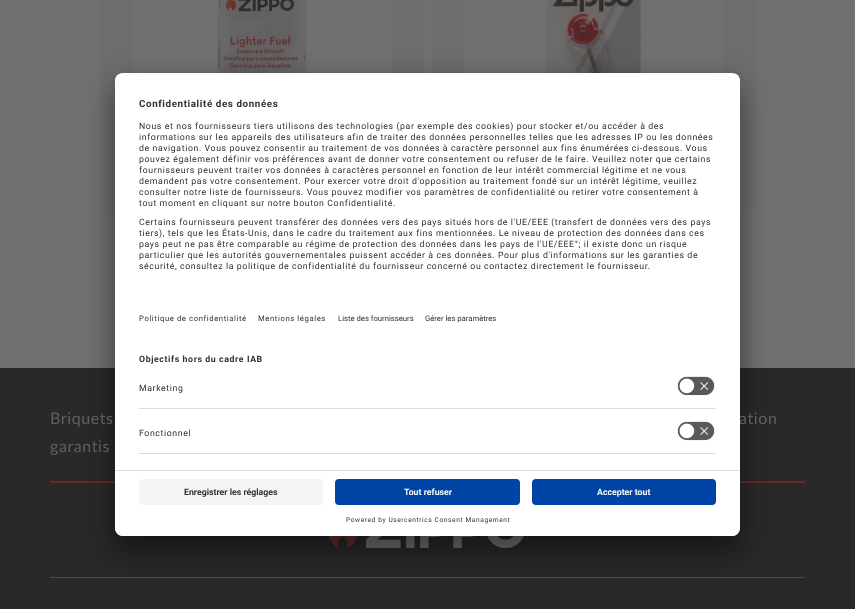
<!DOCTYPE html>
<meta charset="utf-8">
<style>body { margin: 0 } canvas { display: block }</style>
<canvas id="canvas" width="855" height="609"></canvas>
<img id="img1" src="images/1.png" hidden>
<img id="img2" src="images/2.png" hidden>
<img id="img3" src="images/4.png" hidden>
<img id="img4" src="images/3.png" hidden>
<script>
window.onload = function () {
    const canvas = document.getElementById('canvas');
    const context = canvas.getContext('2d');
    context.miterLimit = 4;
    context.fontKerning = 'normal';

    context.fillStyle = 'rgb(112, 112, 112)';
    context.fillRect(0, 0, 855, 609);
    context.fillStyle = 'rgb(109, 109, 109)';
    context.beginPath();
    context.roundRect(100, -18, 324, 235, 18);
    context.fill();
    context.drawImage(document.getElementById('img1'), 132, 0, 260, 73);
    context.beginPath();
    context.roundRect(432, -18, 323, 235, 18);
    context.fill();
    context.drawImage(document.getElementById('img2'), 464, 0, 260, 73);
    context.fillStyle = 'rgb(41, 41, 41)';
    context.fillRect(0, 368, 855, 241);
    context.fillStyle = 'rgb(112, 36, 36)';
    context.fillRect(50, 481, 755, 2);
    context.drawImage(document.getElementById('img3'), 328, 536, 196, 12);
    context.fillStyle = 'rgb(74, 74, 74)';
    context.fillRect(50, 577, 755, 1);
    context.fillStyle = 'rgba(0, 0, 0, 0.3)';
    context.filter = 'blur(14px)';
    context.beginPath();
    context.roundRect(115, 93, 625, 463, 8);
    context.fill();
    context.filter = 'none';
    context.fillStyle = 'rgba(0, 0, 0, 0.22)';
    context.filter = 'blur(13px)';
    context.beginPath();
    context.roundRect(115, 78, 625, 463, 8);
    context.fill();
    context.filter = 'none';
    context.letterSpacing = '0.6px';
    context.font = '16px Lato';
    context.fillStyle = 'rgb(95, 95, 95)';
    context.fillText('Briquets', 50, 424);
    context.fillText('garantis', 50, 452);
    context.fillText('ation', 739, 424);
    context.fillStyle = 'rgb(255, 255, 255)';
    context.beginPath();
    context.roundRect(115, 73, 625, 463, 8);
    context.fill();
    context.save();
    context.beginPath();
    context.roundRect(115, 73, 625, 463, 8);
    context.clip();
    context.beginPath();
    context.roundRect(115, 73, 625, 397, [8, 8, 0, 0]);
    context.clip();
    context.fillRect(115, 74, 625, 396);
    context.restore();
    context.drawImage(document.getElementById('img4'), 677, 421, 38, 20);
    context.font = '8.75px Roboto';
    context.fillStyle = 'rgb(48, 48, 48)';
    context.fillText('Fonctionnel', 139, 436);
    context.fillStyle = 'rgb(221, 221, 221)';
    context.fillRect(139, 453, 577, 1);
    context.drawImage(document.getElementById('img4'), 677, 376, 38, 20);
    context.fillStyle = 'rgb(48, 48, 48)';
    context.fillText('Marketing', 139, 391);
    context.fillStyle = 'rgb(221, 221, 221)';
    context.fillRect(139, 408, 577, 1);
    context.font = 'bold 8.75px Roboto';
    context.fillStyle = 'rgb(48, 48, 48)';
    context.fillText('Objectifs hors du cadre IAB', 139, 362);
    context.save();
    context.beginPath();
    context.roundRect(115, 73, 625, 463, 8);
    context.clip();
    context.beginPath();
    context.roundRect(115, 73, 625, 397, [8, 8, 0, 0]);
    context.clip();
    context.fillStyle = 'rgb(255, 255, 255)';
    context.fillRect(115, 74, 625, 268);
    context.restore();
    context.font = '7.7px Roboto';
    context.fillText('Mentions légales', 258, 321);
    context.fillText('Politique de confidentialité', 139, 321);
    context.font = 'bold 9.8px Roboto';
    context.fillText('Confidentialité des données', 139, 107);
    context.font = '8.75px Roboto';
    context.fillText('sécurité, consultez la politique de confidentialité du fournisseur concerné ou contactez directement le fournisseur.', 139, 269);
    context.fillText('particulier que les autorités gouvernementales puissent accéder à ces données. Pour plus d\'informations sur les garanties de', 139, 258);
    context.fillText('pays peut ne pas être comparable au régime de protection des données dans les pays de l\'UE/EEE°; il existe donc un risque', 139, 247);
    context.fillText('tiers), tels que les États-Unis, dans le cadre du traitement aux fins mentionnées. Le niveau de protection des données dans ces', 139, 236);
    context.fillText('Certains fournisseurs peuvent transférer des données vers des pays situés hors de l\'UE/EEE (transfert de données vers des pays', 139, 225);
    context.fillText('tout moment en cliquant sur notre bouton Confidentialité.', 139, 206);
    context.fillText('consulter notre liste de fournisseurs. Vous pouvez modifier vos paramètres de confidentialité ou retirer votre consentement à', 139, 195);
    context.fillText('demandent pas votre consentement. Pour exercer votre droit d\'opposition au traitement fondé sur un intérêt légitime, veuillez', 139, 184);
    context.fillText('fournisseurs peuvent traiter vos données à caractères personnel en fonction de leur intérêt commercial légitime et ne vous', 139, 173);
    context.fillText('pouvez également définir vos préférences avant de donner votre consentement ou refuser de le faire. Veuillez noter que certains', 139, 162);
    context.fillText('de navigation. Vous pouvez consentir au traitement de vos données à caractère personnel aux fins énumérées ci-dessous. Vous', 139, 151);
    context.fillText('informations sur les appareils des utilisateurs afin de traiter des données personnelles telles que les adresses IP ou les données', 139, 140);
    context.fillText('Nous et nos fournisseurs tiers utilisons des technologies (par exemple des cookies) pour stocker et/ou accéder à des', 139, 129);
    context.letterSpacing = '0px';
    context.font = '7.7px Roboto';
    context.fillText('Gérer les paramètres', 425, 321);
    context.fillText('Liste des fournisseurs', 338, 321);
    context.fillStyle = 'rgb(255, 255, 255)';
    context.beginPath();
    context.roundRect(115, 470, 625, 66, [0, 0, 8, 8]);
    context.fill();
    context.letterSpacing = '0.6px';
    context.font = '6.6px Roboto';
    context.fillStyle = 'rgb(48, 48, 48)';
    context.fillText('Powered by Usercentrics Consent Management', 346, 522);
    context.fillStyle = 'rgb(0, 69, 165)';
    context.beginPath();
    context.roundRect(532, 479, 184, 26, 4);
    context.fill();
    context.letterSpacing = '0px';
    context.font = 'bold 8.75px Roboto';
    context.fillStyle = 'rgb(250, 250, 250)';
    context.fillText('Accepter tout', 597, 495);
    context.fillStyle = 'rgb(0, 69, 165)';
    context.beginPath();
    context.roundRect(335, 479, 185, 26, 4);
    context.fill();
    context.fillStyle = 'rgb(250, 250, 250)';
    context.fillText('Tout refuser', 404, 495);
    context.fillStyle = 'rgb(245, 245, 245)';
    context.beginPath();
    context.roundRect(139, 479, 184, 26, 4);
    context.fill();
    context.fillStyle = 'rgb(48, 48, 48)';
    context.fillText('Enregistrer les réglages', 184, 495);
    context.fillStyle = 'rgb(221, 221, 221)';
    context.fillRect(115, 470, 625, 1);
};
</script>
